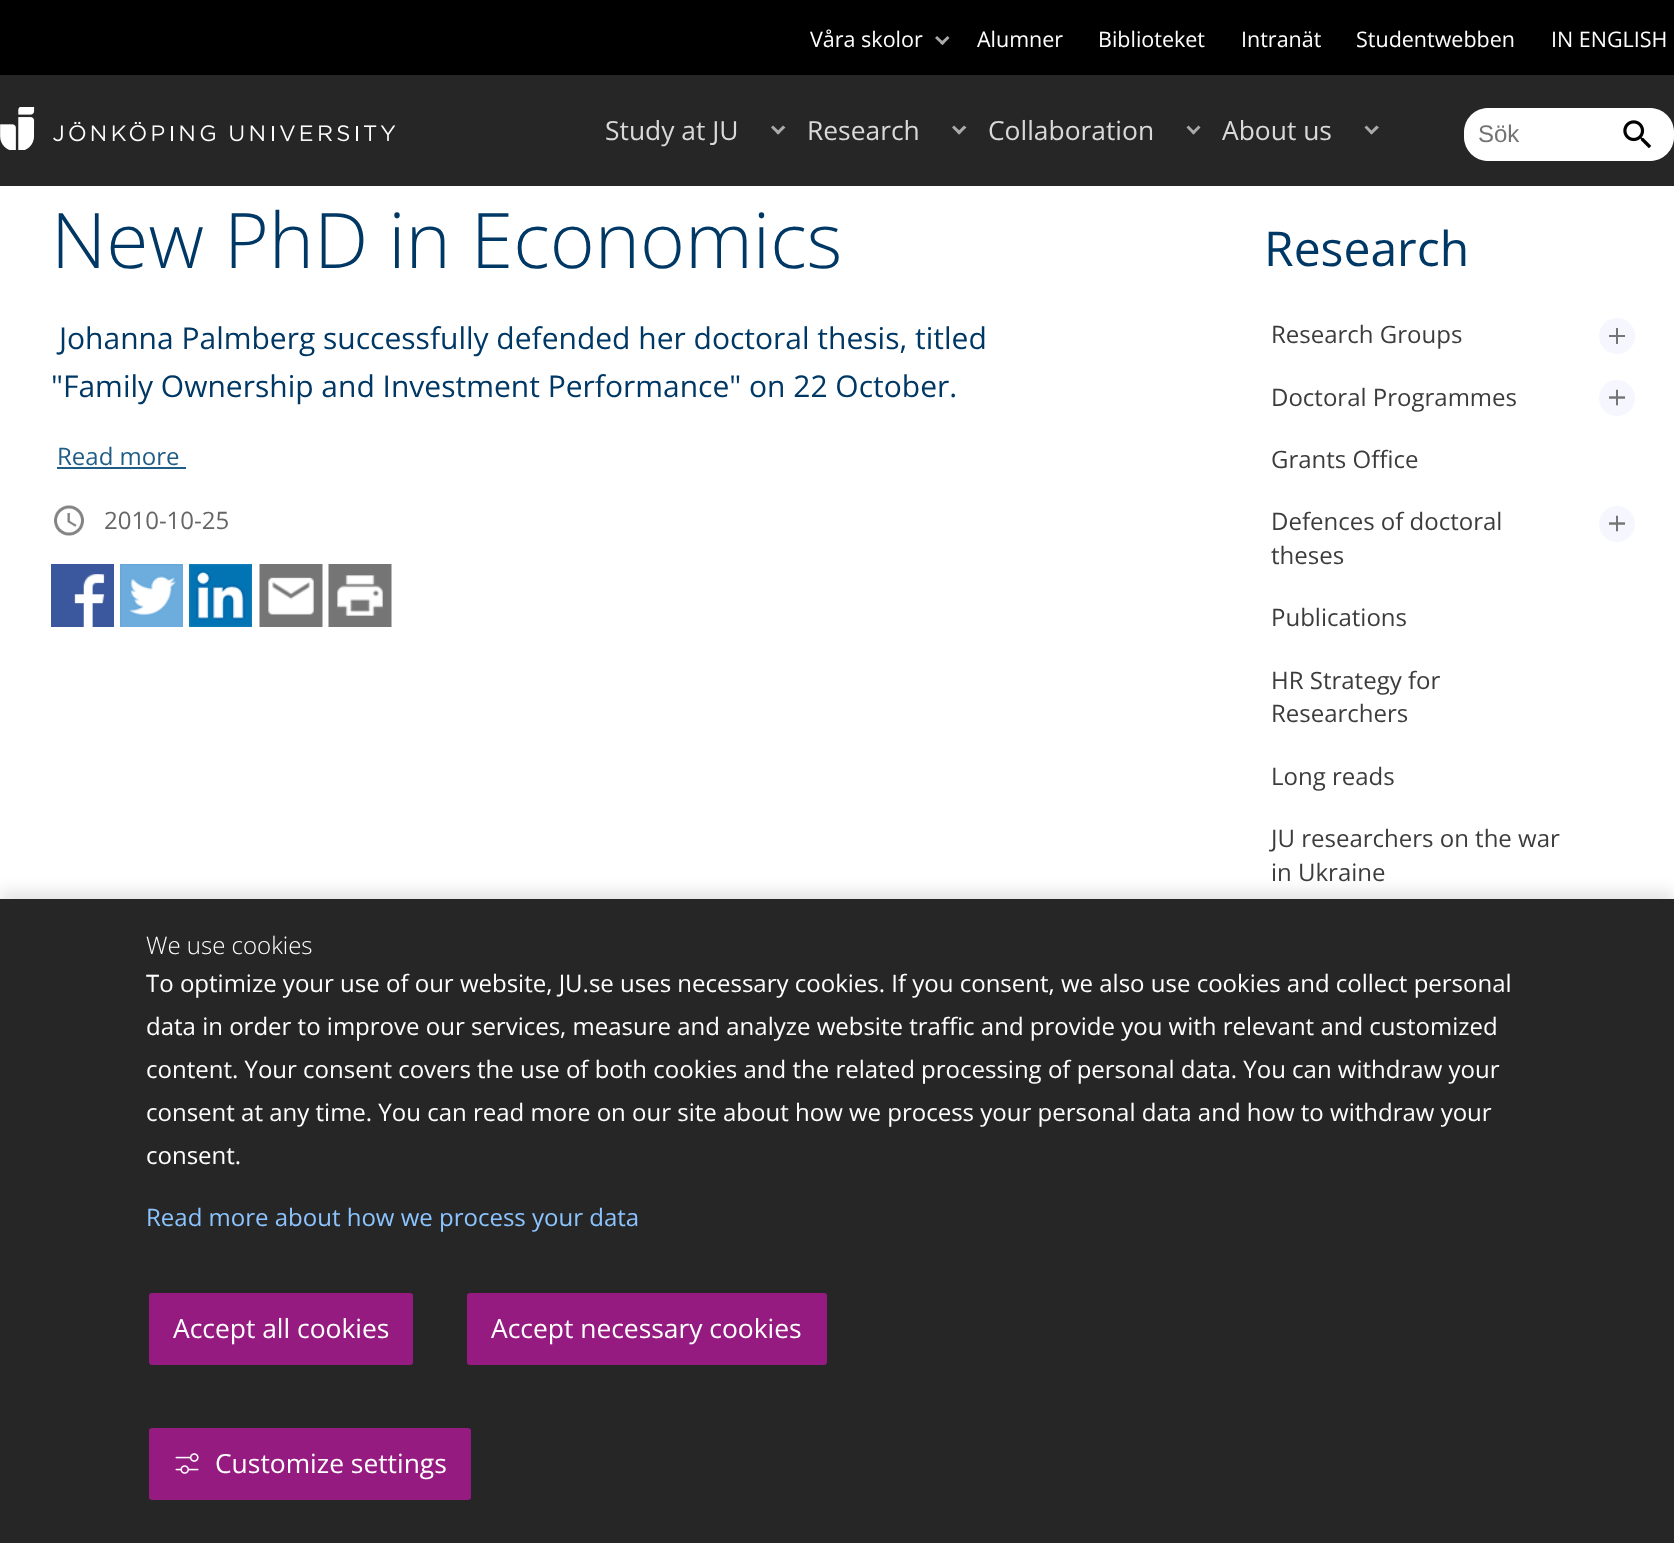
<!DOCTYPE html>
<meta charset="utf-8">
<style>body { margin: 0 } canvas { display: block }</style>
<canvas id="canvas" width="1674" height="1543"></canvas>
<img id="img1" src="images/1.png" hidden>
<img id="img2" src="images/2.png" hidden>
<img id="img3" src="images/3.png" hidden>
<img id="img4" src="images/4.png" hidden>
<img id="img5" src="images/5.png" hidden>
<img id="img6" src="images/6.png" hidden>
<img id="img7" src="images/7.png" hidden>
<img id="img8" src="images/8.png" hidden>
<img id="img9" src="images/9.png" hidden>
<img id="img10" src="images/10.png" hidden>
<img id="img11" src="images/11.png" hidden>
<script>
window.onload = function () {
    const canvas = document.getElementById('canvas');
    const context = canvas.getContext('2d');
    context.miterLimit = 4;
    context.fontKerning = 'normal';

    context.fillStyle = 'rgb(255, 255, 255)';
    context.fillRect(0, 0, 1674, 1543);
    context.fillStyle = 'rgb(0, 0, 0)';
    context.fillRect(0, 0, 1674, 75);
    context.fillStyle = 'rgb(170, 170, 170)';
    context.beginPath();
    context.moveTo(940, 43);
    context.lineTo(947.5, 36);
    context.lineTo(949.5, 38);
    context.lineTo(942.5, 45);
    context.closePath();
    context.fill();
    context.beginPath();
    context.moveTo(935, 38);
    context.lineTo(937, 36);
    context.lineTo(944.5, 43);
    context.lineTo(942.5, 45);
    context.closePath();
    context.fill();
    context.fillStyle = 'rgb(38, 38, 38)';
    context.fillRect(0, 75, 1674, 111);
    context.drawImage(document.getElementById('img1'), 0, 107, 396, 43);
    context.fillStyle = 'rgb(170, 170, 170)';
    context.beginPath();
    context.moveTo(776, 132.5);
    context.lineTo(783, 125.5);
    context.lineTo(785.5, 127.5);
    context.lineTo(778, 134.5);
    context.closePath();
    context.fill();
    context.beginPath();
    context.moveTo(771, 127.5);
    context.lineTo(773, 125.5);
    context.lineTo(780.5, 132.5);
    context.lineTo(778, 134.5);
    context.closePath();
    context.fill();
    context.beginPath();
    context.moveTo(957, 132.5);
    context.lineTo(964, 125.5);
    context.lineTo(966.5, 127.5);
    context.lineTo(959, 134.5);
    context.closePath();
    context.fill();
    context.beginPath();
    context.moveTo(952, 127.5);
    context.lineTo(954, 125.5);
    context.lineTo(961.5, 132.5);
    context.lineTo(959, 134.5);
    context.closePath();
    context.fill();
    context.beginPath();
    context.moveTo(1191.5, 132.5);
    context.lineTo(1198.5, 125.5);
    context.lineTo(1200.5, 127.5);
    context.lineTo(1193.5, 134.5);
    context.closePath();
    context.fill();
    context.beginPath();
    context.moveTo(1186.5, 127.5);
    context.lineTo(1188.5, 125.5);
    context.lineTo(1195.5, 132.5);
    context.lineTo(1193.5, 134.5);
    context.closePath();
    context.fill();
    context.beginPath();
    context.moveTo(1369.5, 132.5);
    context.lineTo(1376.5, 125.5);
    context.lineTo(1379, 127.5);
    context.lineTo(1371.5, 134.5);
    context.closePath();
    context.fill();
    context.beginPath();
    context.moveTo(1364.5, 127.5);
    context.lineTo(1366.5, 125.5);
    context.lineTo(1373.5, 132.5);
    context.lineTo(1371.5, 134.5);
    context.closePath();
    context.fill();
    context.fillStyle = 'rgb(255, 255, 255)';
    context.beginPath();
    context.roundRect(1464, 108, 210, 53, 24);
    context.fill();
    context.beginPath();
    context.roundRect(1464, 108, 210, 53, 26.5);
    context.fill();
    context.drawImage(document.getElementById('img2'), 1623, 120, 29, 29);
    context.fillStyle = 'rgb(31, 93, 134)';
    context.fillRect(57, 467, 129, 2);
    context.drawImage(document.getElementById('img3'), 54, 505, 30, 31);
    context.drawImage(document.getElementById('img4'), 51, 564, 63, 63);
    context.drawImage(document.getElementById('img5'), 120, 564, 63, 63);
    context.drawImage(document.getElementById('img6'), 189, 564, 63, 63);
    context.drawImage(document.getElementById('img7'), 259, 564, 64, 63);
    context.drawImage(document.getElementById('img8'), 328, 564, 64, 63);
    context.fillStyle = 'rgb(246, 246, 255)';
    context.beginPath();
    context.arc(1617, 336, 18, 0, 2 * Math.PI);
    context.fill();
    context.drawImage(document.getElementById('img9'), 1609, 328, 16, 16);
    context.beginPath();
    context.arc(1617, 398, 18, 0, 2 * Math.PI);
    context.fill();
    context.drawImage(document.getElementById('img10'), 1609, 389, 16, 17);
    context.beginPath();
    context.arc(1617, 524, 18, 0, 2 * Math.PI);
    context.fill();
    context.drawImage(document.getElementById('img10'), 1609, 515, 16, 17);
    context.fillStyle = 'rgba(0, 0, 0, 0.1)';
    context.filter = 'blur(7.5px)';
    context.beginPath();
    context.rect(0, 891, 1674, 645);
    context.fill();
    context.filter = 'none';
    context.fillStyle = 'rgb(38, 38, 38)';
    context.fillRect(0, 899, 1674, 644);
    context.fillStyle = 'rgb(150, 27, 129)';
    context.beginPath();
    context.roundRect(149, 1293, 264, 72, 3);
    context.fill();
    context.beginPath();
    context.roundRect(467, 1293, 360, 72, 3);
    context.fill();
    context.beginPath();
    context.roundRect(149, 1428, 322, 72, 3);
    context.fill();
    context.drawImage(document.getElementById('img11'), 175, 1453, 24, 21);
    context.font = '21.5px Open Sans';
    context.fillStyle = 'rgb(255, 255, 255)';
    context.fillText('Våra skolor', 810, 47);
    context.fillText('Alumner', 977, 47);
    context.fillText('Biblioteket', 1098, 47);
    context.fillText('Intranät', 1241, 47);
    context.fillText('Studentwebben', 1356, 47);
    context.fillText('IN ENGLISH', 1551, 47);
    context.font = '26.4px Open Sans';
    context.fillStyle = 'rgb(217, 217, 217)';
    context.fillText('Study at JU', 605, 140);
    context.fillText('Research', 807, 140);
    context.fillText('Collaboration', 988, 140);
    context.fillText('About us', 1222, 140);
    context.font = '24px Liberation Sans';
    context.fillStyle = 'rgb(115, 115, 115)';
    context.fillText('Sök', 1478, 142);
    context.font = '300 76.75px Open Sans';
    context.fillStyle = 'rgb(0, 56, 101)';
    context.fillText('New PhD in Economics', 51, 268);
    context.font = '30px Open Sans';
    context.fillText('Johanna Palmberg successfully defended her doctoral thesis, titled', 59, 349);
    context.fillText('"Family Ownership and Investment Performance" on 22 October.', 51, 397);
    context.font = '24px Open Sans';
    context.fillStyle = 'rgb(31, 93, 134)';
    context.fillText('Read more', 57, 465);
    context.fillStyle = 'rgb(102, 102, 102)';
    context.fillText('2010-10-25', 104, 529);
    context.font = '48px Open Sans';
    context.fillStyle = 'rgb(0, 56, 101)';
    context.fillText('Research', 1264, 266);
    context.font = '24px Open Sans';
    context.fillStyle = 'rgb(60, 60, 60)';
    context.fillText('Research Groups', 1271, 343);
    context.fillText('Doctoral Programmes', 1271, 406);
    context.fillText('Grants Office', 1271, 468);
    context.fillText('Defences of doctoral', 1271, 530);
    context.fillText('theses', 1271, 564);
    context.fillText('Publications', 1271, 626);
    context.fillText('HR Strategy for', 1271, 689);
    context.fillText('Researchers', 1271, 722);
    context.fillText('Long reads', 1271, 785);
    context.fillText('JU researchers on the war', 1271, 847);
    context.fillText('in Ukraine', 1271, 881);
    context.font = '300 24px Open Sans';
    context.fillStyle = 'rgb(255, 255, 255)';
    context.fillText('We use cookies', 146, 954);
    context.font = '24px Open Sans';
    context.fillText('To optimize your use of our website, JU.se uses necessary cookies. If you consent, we also use cookies and collect personal', 146, 992);
    context.fillText('data in order to improve our services, measure and analyze website traffic and provide you with relevant and customized', 146, 1035);
    context.fillText('content. Your consent covers the use of both cookies and the related processing of personal data. You can withdraw your', 146, 1078);
    context.fillText('consent at any time. You can read more on our site about how we process your personal data and how to withdraw your', 146, 1121);
    context.fillText('consent.', 146, 1164);
    context.fillStyle = 'rgb(139, 196, 255)';
    context.fillText('Read more about how we process your data', 146, 1226);
    context.font = '26.4px Open Sans';
    context.fillStyle = 'rgb(255, 255, 255)';
    context.fillText('Accept all cookies', 173, 1338);
    context.fillText('Accept necessary cookies', 491, 1338);
    context.fillText('Customize settings', 215, 1473);
};
</script>
